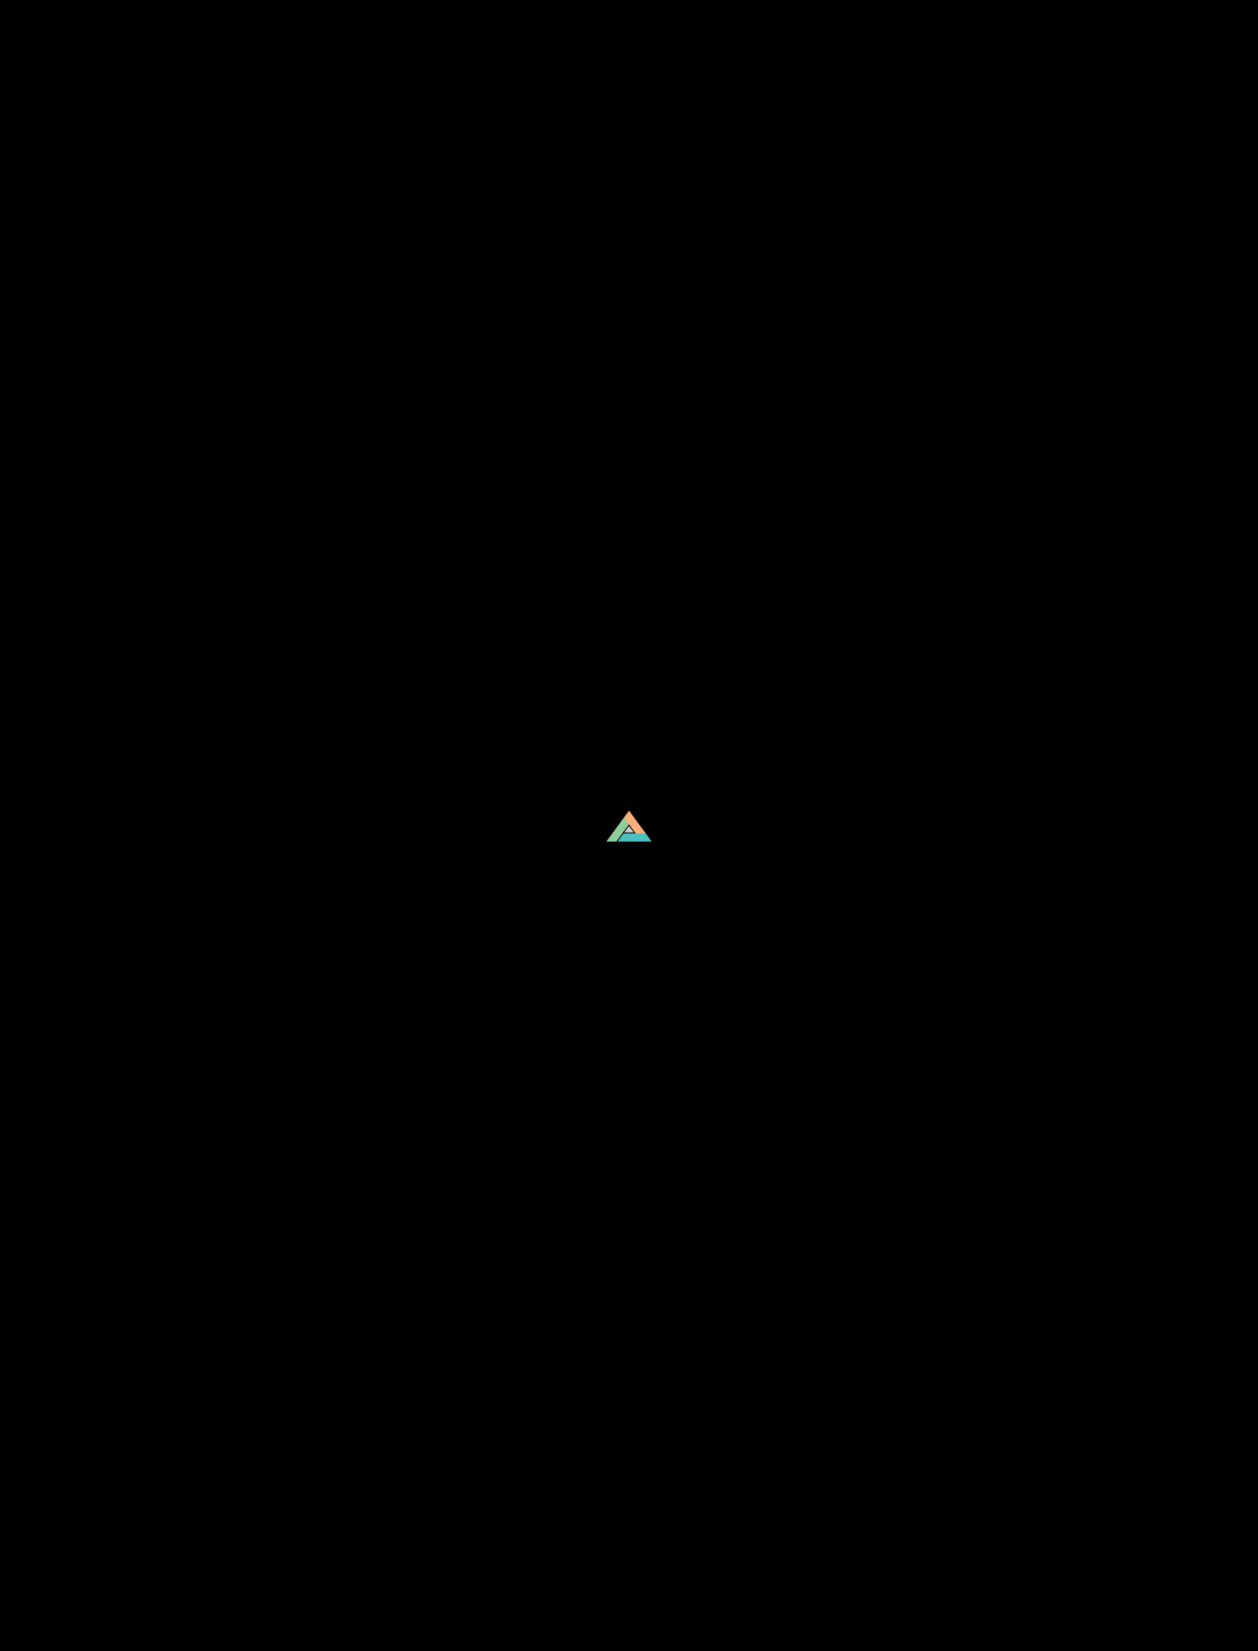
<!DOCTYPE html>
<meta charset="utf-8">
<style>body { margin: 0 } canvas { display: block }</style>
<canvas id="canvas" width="1258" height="1651"></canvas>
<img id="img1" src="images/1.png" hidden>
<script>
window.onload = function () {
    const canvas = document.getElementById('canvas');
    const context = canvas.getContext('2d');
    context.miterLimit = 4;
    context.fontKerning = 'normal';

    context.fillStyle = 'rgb(0, 0, 0)';
    context.fillRect(0, 0, 1258, 1651);
    context.drawImage(document.getElementById('img1'), 606, 810, 46, 32);
};
</script>
